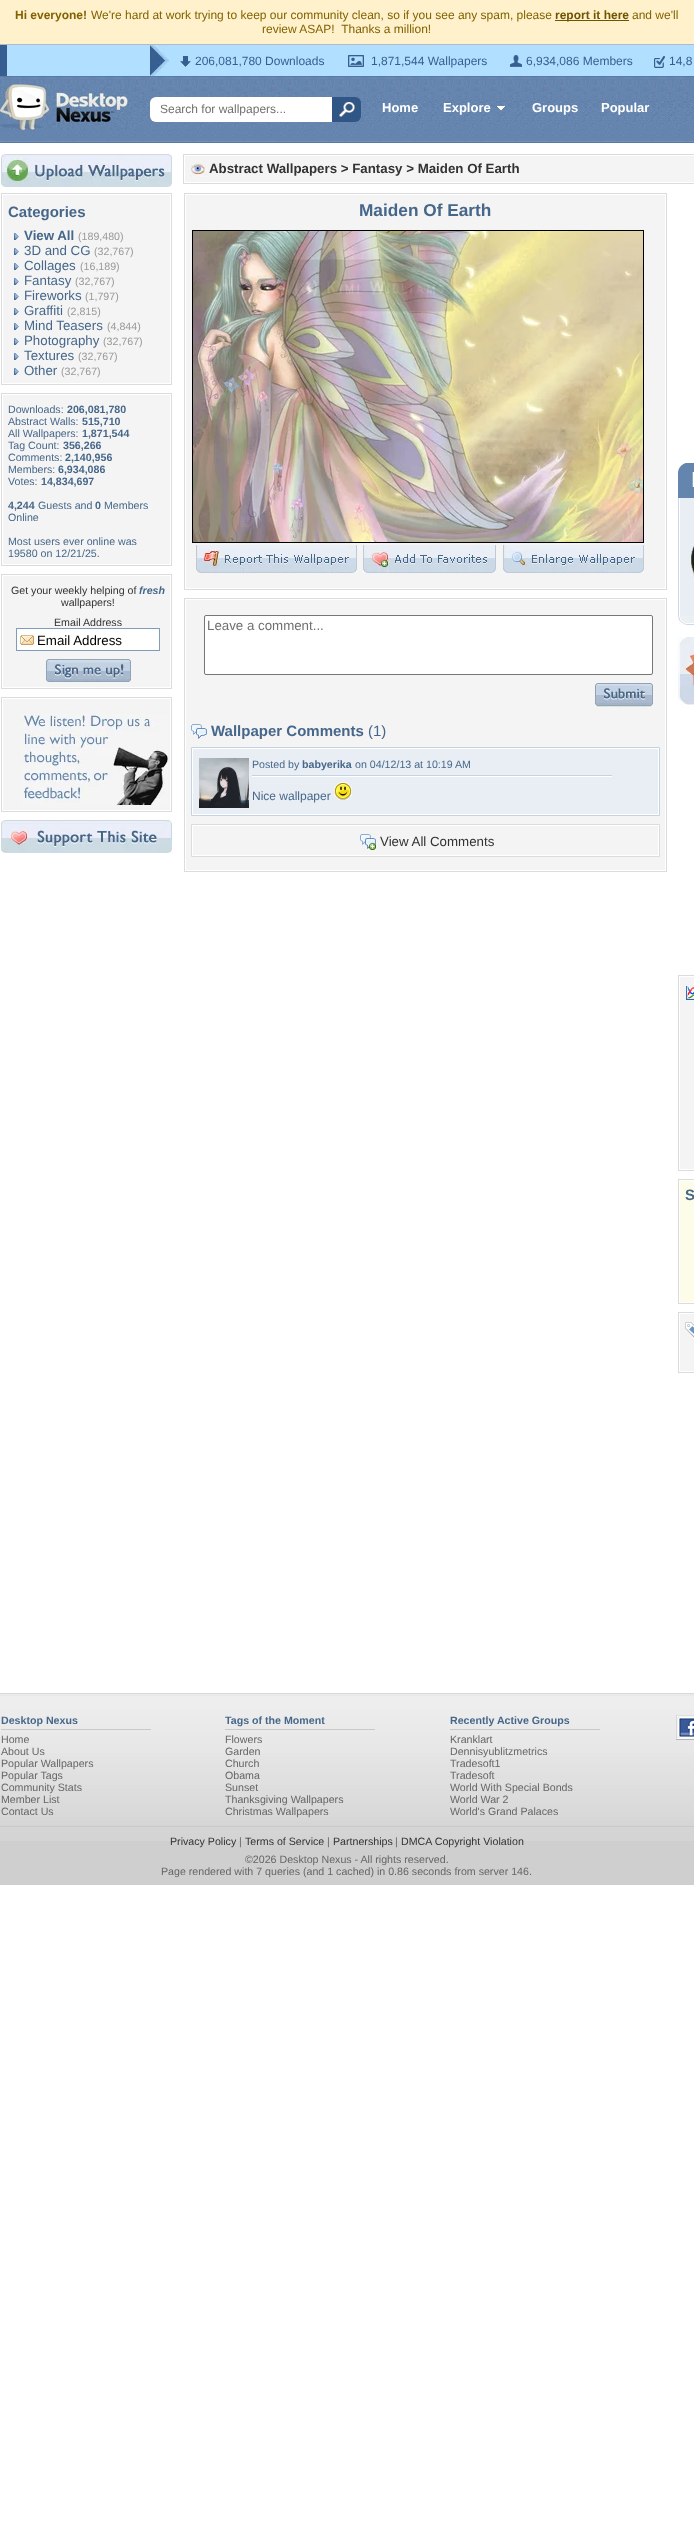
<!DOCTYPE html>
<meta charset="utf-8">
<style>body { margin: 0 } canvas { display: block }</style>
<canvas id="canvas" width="694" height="2533"></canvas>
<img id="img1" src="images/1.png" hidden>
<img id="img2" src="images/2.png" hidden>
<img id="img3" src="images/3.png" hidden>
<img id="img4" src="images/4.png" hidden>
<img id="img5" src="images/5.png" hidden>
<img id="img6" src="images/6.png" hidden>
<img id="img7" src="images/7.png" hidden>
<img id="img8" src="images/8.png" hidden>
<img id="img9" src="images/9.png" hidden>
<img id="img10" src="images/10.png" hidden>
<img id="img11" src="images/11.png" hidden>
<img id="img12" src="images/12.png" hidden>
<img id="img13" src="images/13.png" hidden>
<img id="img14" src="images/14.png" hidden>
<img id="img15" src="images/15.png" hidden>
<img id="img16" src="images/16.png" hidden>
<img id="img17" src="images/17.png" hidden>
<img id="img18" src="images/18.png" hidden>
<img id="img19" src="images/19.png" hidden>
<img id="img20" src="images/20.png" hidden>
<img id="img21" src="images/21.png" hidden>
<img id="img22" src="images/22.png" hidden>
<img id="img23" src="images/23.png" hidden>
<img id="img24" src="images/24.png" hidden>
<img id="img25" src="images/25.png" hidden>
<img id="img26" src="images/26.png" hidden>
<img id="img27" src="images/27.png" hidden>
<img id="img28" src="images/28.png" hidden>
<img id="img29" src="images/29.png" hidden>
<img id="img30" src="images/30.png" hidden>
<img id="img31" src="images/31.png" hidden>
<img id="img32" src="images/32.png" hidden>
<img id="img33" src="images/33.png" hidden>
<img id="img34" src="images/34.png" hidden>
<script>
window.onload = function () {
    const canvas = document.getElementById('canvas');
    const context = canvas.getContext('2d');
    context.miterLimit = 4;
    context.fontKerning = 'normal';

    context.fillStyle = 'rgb(255, 255, 255)';
    context.fillRect(0, 0, 694, 2533);
    context.fillStyle = 'rgb(255, 241, 203)';
    context.fillRect(0, 0, 694, 44);
    context.fillStyle = 'rgb(112, 85, 0)';
    context.fillRect(555, 20, 74, 1);
    context.fillStyle = 'rgb(177, 223, 255)';
    context.fillRect(7, 45, 687, 31);
    context.fillStyle = 'rgb(182, 186, 192)';
    context.fillRect(0, 44, 694, 1);
    context.fillStyle = 'rgb(55, 94, 144)';
    context.fillRect(0, 45, 7, 31);
    context.drawImage(document.getElementById('img1'), 150, 45, 19, 31);
    context.drawImage(document.getElementById('img2'), 180, 56, 11, 11);
    context.drawImage(document.getElementById('img3'), 348, 55, 16, 12);
    context.drawImage(document.getElementById('img4'), 510, 55, 12, 12);
    context.drawImage(document.getElementById('img5'), 654, 56, 11, 12);
    context.drawImage(document.getElementById('img6'), 0, 76, 694, 67);
    context.drawImage(document.getElementById('img7'), 0, 84, 128, 46);
    context.fillStyle = 'rgb(255, 255, 255)';
    context.beginPath();
    context.roundRect(150, 97, 198, 25, [6, 0, 0, 6]);
    context.fill();
    context.fillStyle = 'rgb(48, 86, 134)';
    context.beginPath();
    context.roundRect(332, 97, 29, 25, [0, 6, 6, 0]);
    context.fill();
    context.drawImage(document.getElementById('img8'), 339, 102, 16, 15);
    context.drawImage(document.getElementById('img9'), 496, 106, 10, 5);
    context.drawImage(document.getElementById('img10'), 1, 154, 171, 33);
    context.strokeStyle = 'rgb(220, 220, 220)';
    context.strokeRect(1.5, 193.5, 170, 191);
    context.fillStyle = 'rgb(244, 244, 244)';
    context.fillRect(3, 195, 167, 188);
    context.drawImage(document.getElementById('img11'), 14, 233, 5, 7);
    context.drawImage(document.getElementById('img11'), 14, 248, 5, 7);
    context.drawImage(document.getElementById('img11'), 14, 263, 5, 7);
    context.drawImage(document.getElementById('img11'), 14, 278, 5, 7);
    context.drawImage(document.getElementById('img11'), 14, 293, 5, 7);
    context.drawImage(document.getElementById('img11'), 14, 308, 5, 7);
    context.drawImage(document.getElementById('img11'), 14, 323, 5, 7);
    context.drawImage(document.getElementById('img11'), 14, 338, 5, 7);
    context.drawImage(document.getElementById('img11'), 14, 353, 5, 7);
    context.drawImage(document.getElementById('img11'), 14, 368, 5, 7);
    context.strokeRect(1.5, 393.5, 170, 172);
    context.fillRect(3, 395, 167, 169);
    context.strokeRect(1.5, 574.5, 170, 114);
    context.fillRect(3, 576, 167, 111);
    context.fillStyle = 'rgb(255, 255, 255)';
    context.fillRect(17, 629, 142, 21);
    context.drawImage(document.getElementById('img12'), 17, 635, 17, 10);
    context.strokeStyle = 'rgb(127, 157, 185)';
    context.strokeRect(16.5, 628.5, 143, 22);
    context.drawImage(document.getElementById('img13'), 46, 659, 85, 23);
    context.strokeStyle = 'rgb(220, 220, 220)';
    context.strokeRect(1.5, 697.5, 170, 114);
    context.fillStyle = 'rgb(244, 244, 244)';
    context.fillRect(3, 699, 167, 111);
    context.drawImage(document.getElementById('img14'), 21, 714, 147, 91);
    context.drawImage(document.getElementById('img15'), 1, 820, 171, 33);
    context.strokeRect(183.5, 154.5, 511, 29);
    context.fillRect(185, 156, 509, 26);
    context.drawImage(document.getElementById('img16'), 190, 161, 16, 16);
    context.strokeRect(184.5, 193.5, 482, 396);
    context.fillRect(186, 195, 479, 393);
    context.strokeStyle = 'rgb(0, 0, 0)';
    context.strokeRect(192.5, 230.5, 451, 312);
    context.drawImage(document.getElementById('img17'), 193, 231, 450, 311);
    context.drawImage(document.getElementById('img18'), 196, 545, 161, 28);
    context.drawImage(document.getElementById('img19'), 363, 545, 133, 28);
    context.drawImage(document.getElementById('img20'), 503, 545, 141, 28);
    context.strokeStyle = 'rgb(220, 220, 220)';
    context.strokeRect(184.5, 598.5, 482, 273);
    context.fillRect(186, 600, 479, 270);
    context.fillStyle = 'rgb(255, 255, 255)';
    context.beginPath();
    context.roundRect(204.5, 615.5, 448, 59, 1.5);
    context.fill();
    context.strokeStyle = 'rgb(118, 118, 118)';
    context.stroke();
    context.drawImage(document.getElementById('img21'), 595, 683, 58, 24);
    context.drawImage(document.getElementById('img22'), 191, 724, 16, 15);
    context.beginPath();
    context.rect(191.5, 747.5, 468, 68);
    context.fill();
    context.strokeStyle = 'rgb(197, 210, 226)';
    context.stroke();
    context.fillStyle = 'rgb(233, 238, 244)';
    context.fillRect(193, 749, 465, 65);
    context.drawImage(document.getElementById('img23'), 199, 758, 50, 50);
    context.fillStyle = 'rgb(197, 210, 227)';
    context.fillRect(252, 775, 360, 1);
    context.fillStyle = 'rgb(255, 255, 255)';
    context.fillRect(252, 776, 360, 1);
    context.drawImage(document.getElementById('img24'), 334, 782, 18, 18);
    context.beginPath();
    context.rect(191.5, 824.5, 468, 32);
    context.fill();
    context.strokeStyle = 'rgb(220, 220, 220)';
    context.stroke();
    context.fillStyle = 'rgb(244, 244, 244)';
    context.fillRect(193, 826, 465, 29);
    context.drawImage(document.getElementById('img25'), 360, 834, 16, 16);
    context.drawImage(document.getElementById('img26'), 678, 463, 16, 35);
    context.fillStyle = 'rgb(233, 238, 244)';
    context.fillRect(680, 498, 14, 118);
    context.drawImage(document.getElementById('img27'), 678, 498, 2, 118);
    context.drawImage(document.getElementById('img28'), 691, 541, 3, 40);
    context.drawImage(document.getElementById('img29'), 678, 616, 16, 9);
    context.drawImage(document.getElementById('img30'), 678, 637, 16, 68);
    context.strokeRect(678.5, 975.5, 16, 195);
    context.fillStyle = 'rgb(244, 244, 244)';
    context.fillRect(680, 977, 14, 192);
    context.drawImage(document.getElementById('img31'), 686, 986, 8, 14);
    context.strokeRect(678.5, 1179.5, 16, 124);
    context.fillStyle = 'rgb(253, 252, 232)';
    context.fillRect(680, 1181, 14, 121);
    context.strokeRect(678.5, 1312.5, 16, 60);
    context.fillStyle = 'rgb(244, 244, 244)';
    context.fillRect(680, 1314, 14, 57);
    context.drawImage(document.getElementById('img32'), 685, 1322, 9, 16);
    context.fillStyle = 'rgb(207, 207, 207)';
    context.fillRect(0, 1841, 694, 44);
    context.drawImage(document.getElementById('img33'), 0, 1693, 694, 148);
    context.fillStyle = 'rgb(201, 201, 201)';
    context.fillRect(1, 1729, 150, 1);
    context.fillRect(225, 1729, 150, 1);
    context.fillRect(450, 1729, 150, 1);
    context.drawImage(document.getElementById('img34'), 676, 1715, 18, 25);
    context.fillRect(0, 1826, 694, 1);
    context.font = 'bold 12px Liberation Sans';
    context.fillStyle = 'rgb(130, 98, 0)';
    context.fillText('Hi everyone!', 15, 19);
    context.font = '12px Liberation Sans';
    context.fillText('We\'re hard at work trying to keep our community clean, so if you see any spam, please', 91, 19);
    context.font = 'bold 12px Liberation Sans';
    context.fillStyle = 'rgb(112, 85, 0)';
    context.fillText('report it here', 555, 19);
    context.font = '12px Liberation Sans';
    context.fillStyle = 'rgb(130, 98, 0)';
    context.fillText('and we\'ll', 632, 19);
    context.fillText('review ASAP!  Thanks a million!', 262, 33);
    context.fillStyle = 'rgb(55, 94, 144)';
    context.fillText('206,081,780 Downloads', 195, 65);
    context.fillText('1,871,544 Wallpapers', 371, 65);
    context.fillText('6,934,086 Members', 526, 65);
    context.fillText('14,8', 669, 65);
    context.fillStyle = 'rgb(112, 112, 112)';
    context.fillText('Search for wallpapers...', 160, 113);
    context.font = 'bold 13px Liberation Sans';
    context.fillStyle = 'rgb(255, 255, 255)';
    context.fillText('Home', 382, 112);
    context.fillText('Explore', 443, 112);
    context.fillText('Groups', 532, 112);
    context.fillText('Popular', 601, 112);
    context.font = 'bold 15px Liberation Sans';
    context.fillStyle = 'rgb(70, 103, 138)';
    context.fillText('Categories', 8, 217);
    context.font = 'bold 13.3px Liberation Sans';
    context.fillText('View All', 24, 240);
    context.font = '10.65px Liberation Sans';
    context.fillStyle = 'rgb(153, 153, 153)';
    context.fillText('(189,480)', 78, 240);
    context.font = '13.3px Liberation Sans';
    context.fillStyle = 'rgb(70, 103, 138)';
    context.fillText('3D and CG', 24, 255);
    context.font = '10.65px Liberation Sans';
    context.fillStyle = 'rgb(153, 153, 153)';
    context.fillText('(32,767)', 94, 255);
    context.font = '13.3px Liberation Sans';
    context.fillStyle = 'rgb(70, 103, 138)';
    context.fillText('Collages', 24, 270);
    context.font = '10.65px Liberation Sans';
    context.fillStyle = 'rgb(153, 153, 153)';
    context.fillText('(16,189)', 80, 270);
    context.font = '13.3px Liberation Sans';
    context.fillStyle = 'rgb(70, 103, 138)';
    context.fillText('Fantasy', 24, 285);
    context.font = '10.65px Liberation Sans';
    context.fillStyle = 'rgb(153, 153, 153)';
    context.fillText('(32,767)', 75, 285);
    context.font = '13.3px Liberation Sans';
    context.fillStyle = 'rgb(70, 103, 138)';
    context.fillText('Fireworks', 24, 300);
    context.font = '10.65px Liberation Sans';
    context.fillStyle = 'rgb(153, 153, 153)';
    context.fillText('(1,797)', 85, 300);
    context.font = '13.3px Liberation Sans';
    context.fillStyle = 'rgb(70, 103, 138)';
    context.fillText('Graffiti', 24, 315);
    context.font = '10.65px Liberation Sans';
    context.fillStyle = 'rgb(153, 153, 153)';
    context.fillText('(2,815)', 67, 315);
    context.font = '13.3px Liberation Sans';
    context.fillStyle = 'rgb(70, 103, 138)';
    context.fillText('Mind Teasers', 24, 330);
    context.font = '10.65px Liberation Sans';
    context.fillStyle = 'rgb(153, 153, 153)';
    context.fillText('(4,844)', 107, 330);
    context.font = '13.3px Liberation Sans';
    context.fillStyle = 'rgb(70, 103, 138)';
    context.fillText('Photography', 24, 345);
    context.font = '10.65px Liberation Sans';
    context.fillStyle = 'rgb(153, 153, 153)';
    context.fillText('(32,767)', 103, 345);
    context.font = '13.3px Liberation Sans';
    context.fillStyle = 'rgb(70, 103, 138)';
    context.fillText('Textures', 24, 360);
    context.font = '10.65px Liberation Sans';
    context.fillStyle = 'rgb(153, 153, 153)';
    context.fillText('(32,767)', 78, 360);
    context.font = '13.3px Liberation Sans';
    context.fillStyle = 'rgb(70, 103, 138)';
    context.fillText('Other', 24, 375);
    context.font = '10.65px Liberation Sans';
    context.fillStyle = 'rgb(153, 153, 153)';
    context.fillText('(32,767)', 61, 375);
    context.fillStyle = 'rgb(70, 103, 138)';
    context.fillText('Downloads:', 8, 413);
    context.font = 'bold 10.65px Liberation Sans';
    context.fillText('206,081,780', 67, 413);
    context.font = '10.65px Liberation Sans';
    context.fillText('Abstract Walls:', 8, 425);
    context.font = 'bold 10.65px Liberation Sans';
    context.fillText('515,710', 82, 425);
    context.font = '10.65px Liberation Sans';
    context.fillText('All Wallpapers:', 8, 437);
    context.font = 'bold 10.65px Liberation Sans';
    context.fillText('1,871,544', 82, 437);
    context.font = '10.65px Liberation Sans';
    context.fillText('Tag Count:', 8, 449);
    context.font = 'bold 10.65px Liberation Sans';
    context.fillText('356,266', 63, 449);
    context.font = '10.65px Liberation Sans';
    context.fillText('Comments:', 8, 461);
    context.font = 'bold 10.65px Liberation Sans';
    context.fillText('2,140,956', 65, 461);
    context.font = '10.65px Liberation Sans';
    context.fillText('Members:', 8, 473);
    context.font = 'bold 10.65px Liberation Sans';
    context.fillText('6,934,086', 58, 473);
    context.font = '10.65px Liberation Sans';
    context.fillText('Votes:', 8, 485);
    context.font = 'bold 10.65px Liberation Sans';
    context.fillText('14,834,697', 41, 485);
    context.fillText('4,244', 8, 509);
    context.font = '10.65px Liberation Sans';
    context.fillText('Guests and', 38, 509);
    context.font = 'bold 10.65px Liberation Sans';
    context.fillText('0', 95, 509);
    context.font = '10.65px Liberation Sans';
    context.fillText('Members', 104, 509);
    context.fillText('Online', 8, 521);
    context.fillText('Most users ever online was', 8, 545);
    context.fillText('19580 on 12/21/25.', 8, 557);
    context.fillStyle = 'rgb(51, 51, 51)';
    context.fillText('Get your weekly helping of', 11, 594);
    context.font = 'italic bold 10.65px Liberation Sans';
    context.fillStyle = 'rgb(70, 103, 138)';
    context.fillText('fresh', 139, 594);
    context.font = '10.65px Liberation Sans';
    context.fillStyle = 'rgb(51, 51, 51)';
    context.fillText('wallpapers!', 61, 606);
    context.fillText('Email Address', 54, 626);
    context.font = '13.3px Liberation Sans';
    context.fillStyle = 'rgb(0, 0, 0)';
    context.fillText('Email Address', 37, 645);
    context.font = 'bold 13.3px Liberation Sans';
    context.fillStyle = 'rgb(51, 51, 51)';
    context.fillText('Abstract Wallpapers > Fantasy > Maiden Of Earth', 209, 173);
    context.font = 'bold 17.25px Liberation Sans';
    context.fillStyle = 'rgb(70, 103, 138)';
    context.fillText('Maiden Of Earth', 359, 216);
    context.font = '13.3px Liberation Sans';
    context.fillStyle = 'rgb(112, 112, 112)';
    context.fillText('Leave a comment...', 207, 630);
    context.font = 'bold 15px Liberation Sans';
    context.fillStyle = 'rgb(70, 103, 138)';
    context.fillText('Wallpaper Comments', 211, 736);
    context.font = '15px Liberation Sans';
    context.fillText('(1)', 368, 736);
    context.font = '10.65px Liberation Sans';
    context.fillText('Posted by', 252, 768);
    context.font = 'bold 10.65px Liberation Sans';
    context.fillText('babyerika', 302, 768);
    context.font = '10.65px Liberation Sans';
    context.fillText('on 04/12/13 at 10:19 AM', 355, 768);
    context.font = '12px Liberation Sans';
    context.fillText('Nice wallpaper', 252, 800);
    context.font = '13.3px Liberation Sans';
    context.fillStyle = 'rgb(51, 51, 51)';
    context.fillText('View All Comments', 380, 846);
    context.font = 'bold 15px Liberation Sans';
    context.fillStyle = 'rgb(70, 103, 138)';
    context.fillText('S', 685, 1200);
    context.font = 'bold 10.65px Liberation Sans';
    context.fillText('Desktop Nexus', 1, 1724);
    context.font = '10.65px Liberation Sans';
    context.fillStyle = 'rgb(102, 102, 102)';
    context.fillText('Home', 1, 1743);
    context.fillText('About Us', 1, 1755);
    context.fillText('Popular Wallpapers', 1, 1767);
    context.fillText('Popular Tags', 1, 1779);
    context.fillText('Community Stats', 1, 1791);
    context.fillText('Member List', 1, 1803);
    context.fillText('Contact Us', 1, 1815);
    context.font = 'bold 10.65px Liberation Sans';
    context.fillStyle = 'rgb(70, 103, 138)';
    context.fillText('Tags of the Moment', 225, 1724);
    context.font = '10.65px Liberation Sans';
    context.fillStyle = 'rgb(102, 102, 102)';
    context.fillText('Flowers', 225, 1743);
    context.fillText('Garden', 225, 1755);
    context.fillText('Church', 225, 1767);
    context.fillText('Obama', 225, 1779);
    context.fillText('Sunset', 225, 1791);
    context.fillText('Thanksgiving Wallpapers', 225, 1803);
    context.fillText('Christmas Wallpapers', 225, 1815);
    context.font = 'bold 10.65px Liberation Sans';
    context.fillStyle = 'rgb(70, 103, 138)';
    context.fillText('Recently Active Groups', 450, 1724);
    context.font = '10.65px Liberation Sans';
    context.fillStyle = 'rgb(102, 102, 102)';
    context.fillText('Kranklart', 450, 1743);
    context.fillText('Dennisyublitzmetrics', 450, 1755);
    context.fillText('Tradesoft1', 450, 1767);
    context.fillText('Tradesoft', 450, 1779);
    context.fillText('World With Special Bonds', 450, 1791);
    context.fillText('World War 2', 450, 1803);
    context.fillText('World\'s Grand Palaces', 450, 1815);
    context.fillStyle = 'rgb(51, 51, 51)';
    context.fillText('Privacy Policy', 170, 1845);
    context.fillStyle = 'rgb(102, 102, 102)';
    context.fillText('|', 239, 1845);
    context.fillStyle = 'rgb(51, 51, 51)';
    context.fillText('Terms of Service', 245, 1845);
    context.fillStyle = 'rgb(102, 102, 102)';
    context.fillText('|', 327, 1845);
    context.fillStyle = 'rgb(51, 51, 51)';
    context.fillText('Partnerships', 333, 1845);
    context.fillStyle = 'rgb(102, 102, 102)';
    context.fillText('|', 395, 1845);
    context.fillStyle = 'rgb(51, 51, 51)';
    context.fillText('DMCA Copyright Violation', 401, 1845);
    context.fillStyle = 'rgb(102, 102, 102)';
    context.fillText('©2026 Desktop Nexus - All rights reserved.', 245, 1863);
    context.fillText('Page rendered with 7 queries (and 1 cached) in 0.86 seconds from server 146.', 161, 1875);
};
</script>
